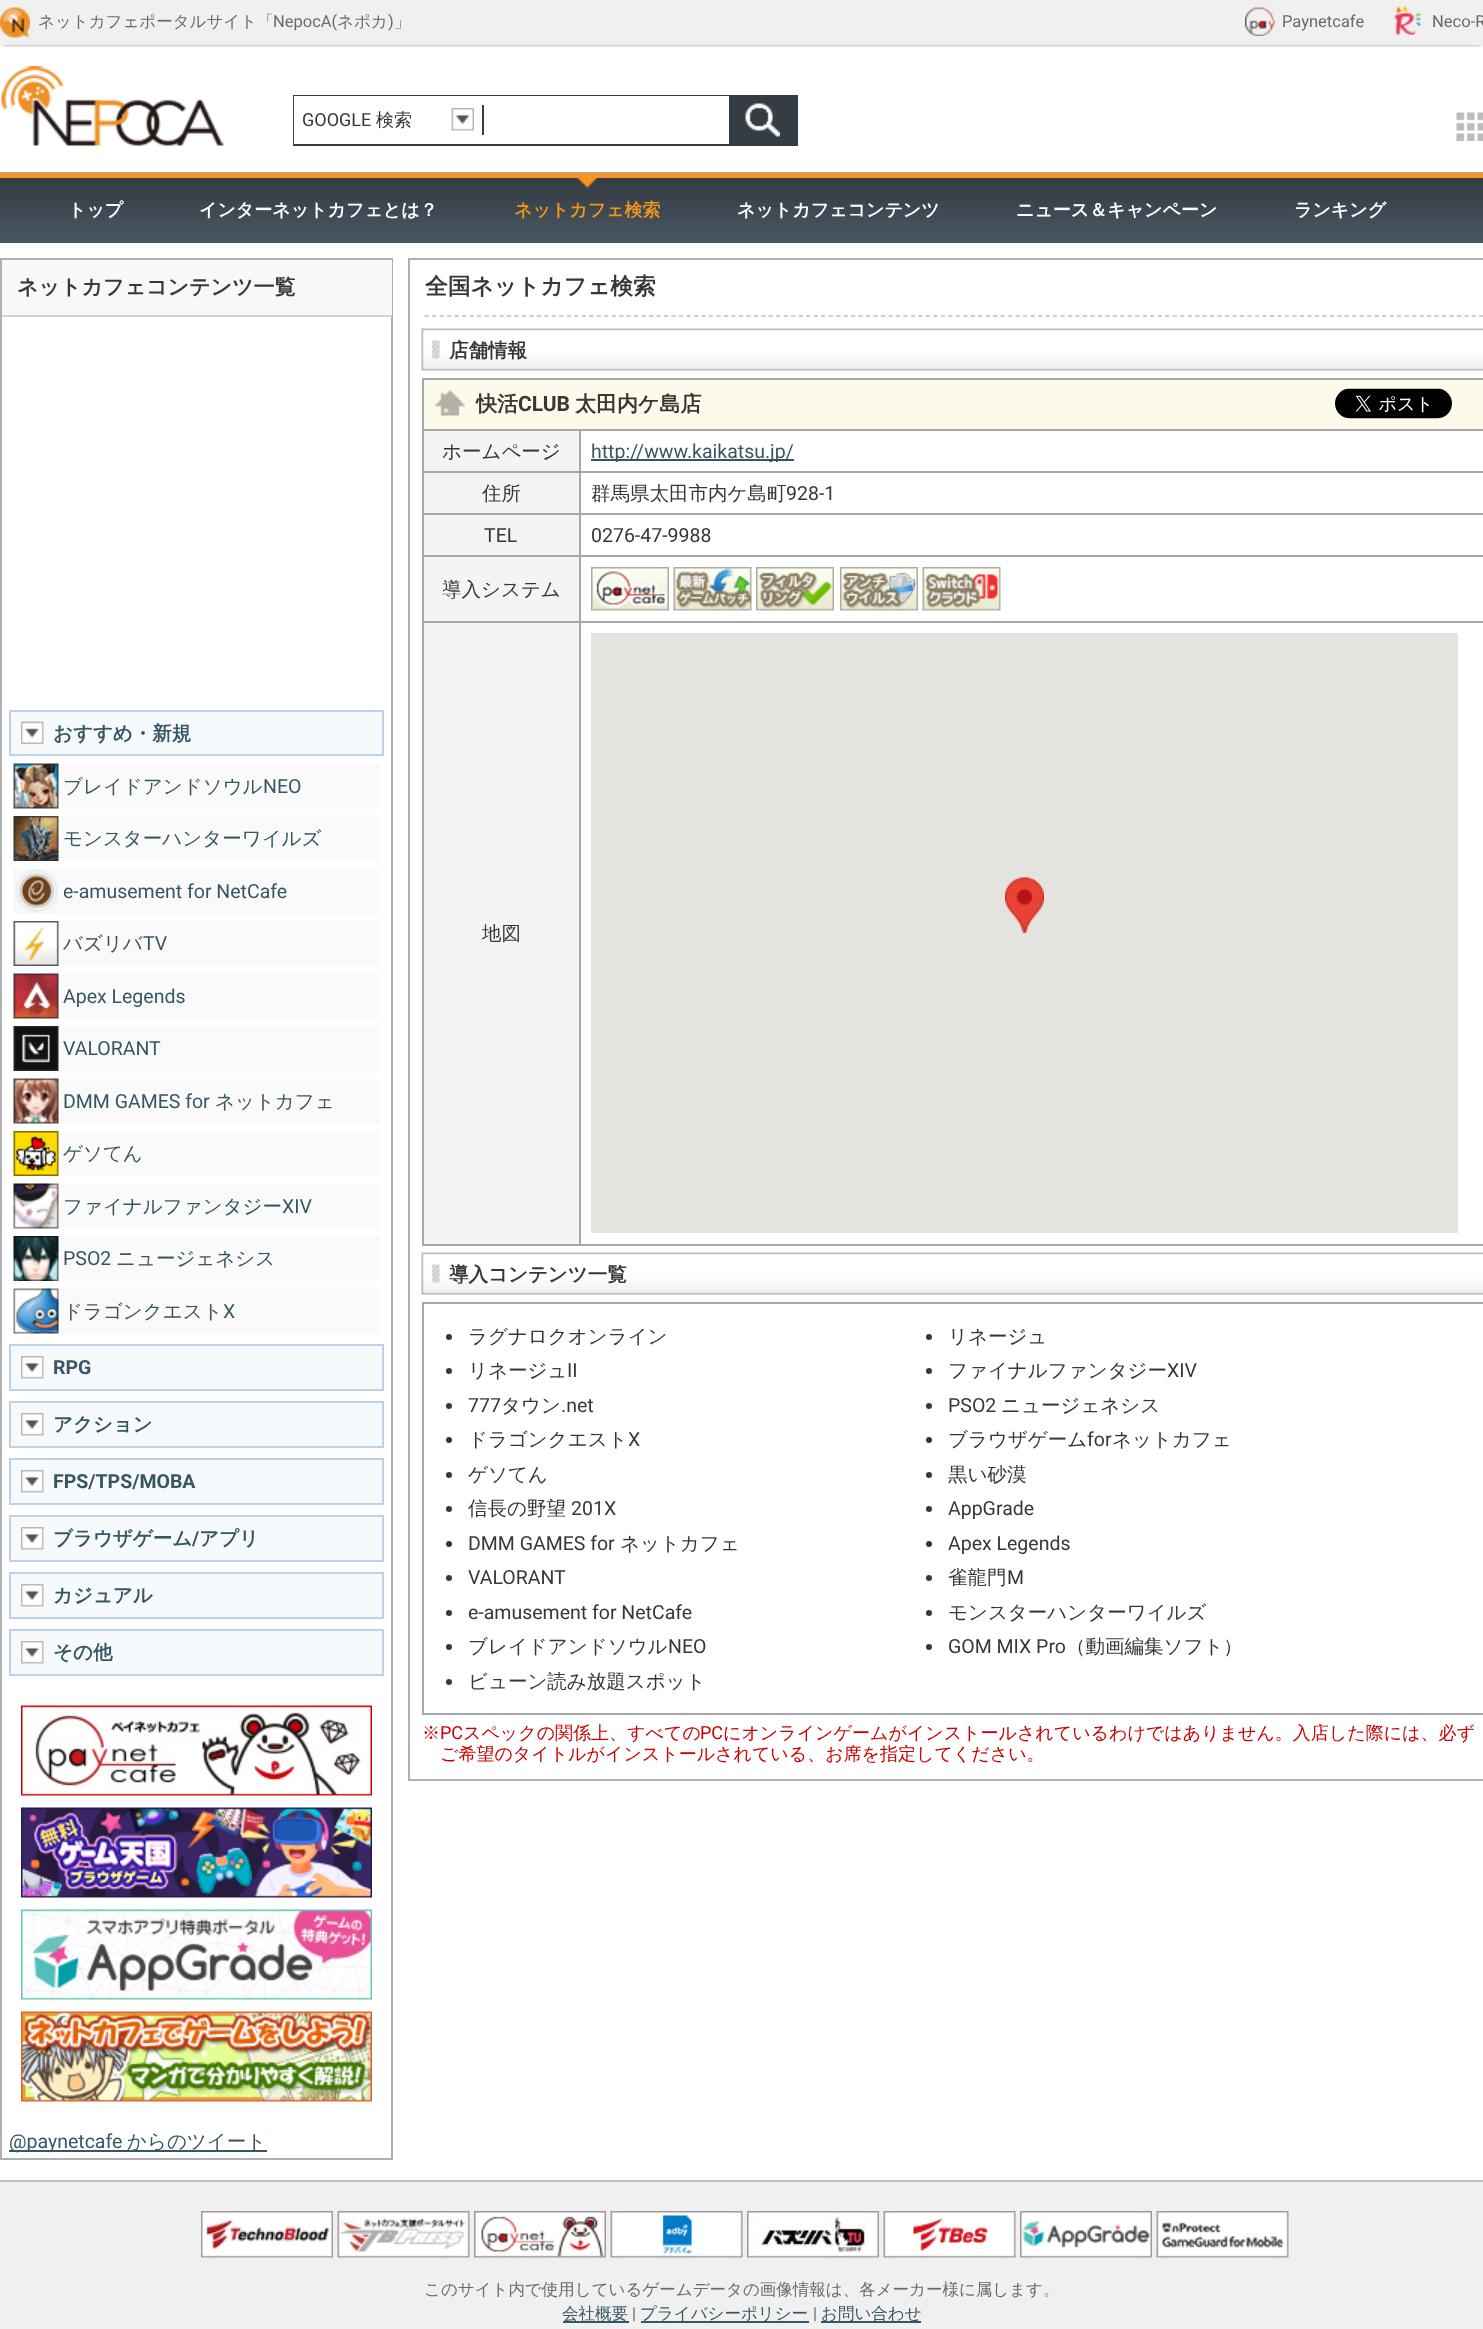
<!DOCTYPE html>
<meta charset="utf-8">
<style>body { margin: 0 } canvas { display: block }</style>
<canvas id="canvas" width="1483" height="2329"></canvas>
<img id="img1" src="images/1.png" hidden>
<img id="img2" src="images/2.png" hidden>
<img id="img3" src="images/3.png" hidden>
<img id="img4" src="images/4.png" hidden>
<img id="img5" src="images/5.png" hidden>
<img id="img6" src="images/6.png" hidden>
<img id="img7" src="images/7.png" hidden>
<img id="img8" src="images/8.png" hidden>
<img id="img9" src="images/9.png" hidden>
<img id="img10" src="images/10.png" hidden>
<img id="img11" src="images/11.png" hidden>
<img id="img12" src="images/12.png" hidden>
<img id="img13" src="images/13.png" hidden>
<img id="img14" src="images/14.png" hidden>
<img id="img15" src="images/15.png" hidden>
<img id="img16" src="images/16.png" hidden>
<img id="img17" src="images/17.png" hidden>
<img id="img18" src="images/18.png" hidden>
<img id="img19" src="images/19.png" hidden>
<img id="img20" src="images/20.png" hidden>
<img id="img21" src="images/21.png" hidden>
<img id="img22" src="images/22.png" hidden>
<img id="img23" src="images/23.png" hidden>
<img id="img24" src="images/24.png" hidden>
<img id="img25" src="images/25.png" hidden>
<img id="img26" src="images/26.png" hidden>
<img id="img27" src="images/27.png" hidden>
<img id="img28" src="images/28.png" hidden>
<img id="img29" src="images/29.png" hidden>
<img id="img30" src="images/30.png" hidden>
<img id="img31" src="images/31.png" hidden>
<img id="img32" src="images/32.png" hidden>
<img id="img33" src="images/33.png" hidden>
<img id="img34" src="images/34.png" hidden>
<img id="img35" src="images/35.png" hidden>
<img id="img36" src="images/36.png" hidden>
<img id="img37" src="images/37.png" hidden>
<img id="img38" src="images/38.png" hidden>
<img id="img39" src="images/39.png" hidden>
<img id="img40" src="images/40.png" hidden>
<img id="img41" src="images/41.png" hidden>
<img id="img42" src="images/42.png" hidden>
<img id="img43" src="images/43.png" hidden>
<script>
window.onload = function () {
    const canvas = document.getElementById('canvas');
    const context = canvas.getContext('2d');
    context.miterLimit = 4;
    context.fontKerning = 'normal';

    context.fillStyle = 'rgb(255, 255, 255)';
    context.fillRect(0, 0, 1483, 2329);
    context.fillStyle = 'rgba(0, 0, 0, 0.52)';
    context.filter = 'blur(1.5px)';
    context.beginPath();
    context.rect(3, 6, 1478, 39);
    context.fill();
    context.filter = 'none';
    context.fillStyle = 'rgb(240, 240, 240)';
    context.fillRect(0, 0, 1483, 45);
    context.drawImage(document.getElementById('img1'), 0, 7, 30, 31);
    context.drawImage(document.getElementById('img2'), 1245, 7, 30, 29);
    context.drawImage(document.getElementById('img3'), 1394, 6, 27, 29);
    context.drawImage(document.getElementById('img4'), 1, 66, 223, 80);
    context.strokeStyle = 'rgb(53, 61, 68)';
    context.lineWidth = 2;
    context.strokeRect(294, 96, 503, 49);
    context.fillStyle = 'rgb(255, 255, 255)';
    context.fillRect(294, 96, 435, 48);
    context.fillStyle = 'rgb(53, 61, 68)';
    context.fillRect(729, 97, 67, 47);
    context.drawImage(document.getElementById('img5'), 745, 103, 35, 34);
    context.drawImage(document.getElementById('img6'), 451, 108, 23, 23);
    context.fillRect(482, 105, 2, 30);
    context.drawImage(document.getElementById('img7'), 1456, 112, 27, 29);
    context.drawImage(document.getElementById('img8'), 0, 172, 1483, 71);
    context.fillStyle = 'rgb(247, 148, 31)';
    context.fillRect(0, 173, 1483, 5);
    context.drawImage(document.getElementById('img9'), 576, 178, 23, 10);
    context.strokeStyle = 'rgb(176, 176, 176)';
    context.strokeRect(1, 259, 391, 1900);
    context.fillStyle = 'rgb(248, 248, 248)';
    context.fillRect(2, 260, 390, 55);
    context.fillStyle = 'rgb(211, 211, 211)';
    context.fillRect(2, 315, 390, 2);
    context.fillStyle = 'rgb(247, 250, 253)';
    context.fillRect(11, 712, 371, 42);
    context.drawImage(document.getElementById('img10'), 21, 721, 23, 23);
    context.strokeStyle = 'rgb(191, 209, 230)';
    context.strokeRect(10, 711, 373, 44);
    context.fillStyle = 'rgb(250, 250, 250)';
    context.fillRect(14, 764, 366, 45);
    context.drawImage(document.getElementById('img11'), 13, 763, 46, 46);
    context.fillRect(58, 816, 322, 45);
    context.drawImage(document.getElementById('img12'), 13, 816, 46, 45);
    context.fillRect(14, 869, 366, 45);
    context.drawImage(document.getElementById('img13'), 13, 868, 45, 45);
    context.fillRect(58, 921, 322, 45);
    context.drawImage(document.getElementById('img14'), 13, 921, 46, 45);
    context.fillRect(14, 974, 366, 45);
    context.drawImage(document.getElementById('img15'), 13, 973, 46, 46);
    context.fillRect(58, 1026, 322, 45);
    context.drawImage(document.getElementById('img16'), 13, 1026, 46, 45);
    context.fillRect(14, 1079, 366, 45);
    context.drawImage(document.getElementById('img17'), 13, 1078, 46, 46);
    context.fillRect(58, 1131, 322, 45);
    context.drawImage(document.getElementById('img18'), 13, 1131, 46, 45);
    context.fillRect(14, 1184, 366, 45);
    context.drawImage(document.getElementById('img19'), 13, 1183, 46, 46);
    context.fillRect(58, 1236, 322, 45);
    context.drawImage(document.getElementById('img20'), 13, 1236, 46, 45);
    context.fillRect(14, 1289, 366, 45);
    context.drawImage(document.getElementById('img21'), 13, 1288, 46, 46);
    context.fillStyle = 'rgb(247, 250, 253)';
    context.fillRect(11, 1346, 371, 43);
    context.drawImage(document.getElementById('img22'), 21, 1356, 23, 23);
    context.strokeRect(10, 1345, 373, 45);
    context.fillRect(11, 1403, 371, 43);
    context.drawImage(document.getElementById('img22'), 21, 1413, 23, 23);
    context.strokeRect(10, 1402, 373, 45);
    context.fillRect(11, 1460, 371, 43);
    context.drawImage(document.getElementById('img22'), 21, 1470, 23, 23);
    context.strokeRect(10, 1459, 373, 45);
    context.fillRect(11, 1517, 371, 43);
    context.drawImage(document.getElementById('img22'), 21, 1527, 23, 23);
    context.strokeRect(10, 1516, 373, 45);
    context.fillRect(11, 1574, 371, 43);
    context.drawImage(document.getElementById('img22'), 21, 1584, 23, 23);
    context.strokeRect(10, 1573, 373, 45);
    context.fillRect(11, 1631, 371, 43);
    context.drawImage(document.getElementById('img22'), 21, 1641, 23, 23);
    context.strokeRect(10, 1630, 373, 45);
    context.drawImage(document.getElementById('img23'), 21, 1705, 351, 91);
    context.drawImage(document.getElementById('img24'), 21, 1807, 351, 91);
    context.drawImage(document.getElementById('img25'), 21, 1909, 351, 91);
    context.drawImage(document.getElementById('img26'), 21, 2011, 351, 91);
    context.fillStyle = 'rgb(55, 86, 99)';
    context.fillRect(9, 2150, 258, 2);
    context.strokeStyle = 'rgb(176, 176, 176)';
    context.strokeRect(409, 259, 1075, 1521);
    context.beginPath();
    context.moveTo(424.5, 316);
    context.lineTo(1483.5, 316);
    context.strokeStyle = 'rgb(192, 192, 192)';
    context.lineWidth = 1.5;
    context.setLineDash([4.5, 2.98]);
    context.stroke();
    context.drawImage(document.getElementById('img27'), 421, 328, 1062, 43);
    context.fillStyle = 'rgb(167, 167, 167)';
    context.fillRect(422, 378, 1061, 2);
    context.fillRect(422, 1244, 1061, 2);
    context.fillRect(422, 378, 2, 867);
    context.fillStyle = 'rgb(253, 250, 235)';
    context.fillRect(424, 380, 1059, 49);
    context.drawImage(document.getElementById('img28'), 435, 390, 30, 26);
    context.drawImage(document.getElementById('img29'), 1335, 388, 117, 31);
    context.fillStyle = 'rgb(244, 244, 244)';
    context.fillRect(424, 431, 155, 40);
    context.fillStyle = 'rgb(167, 167, 167)';
    context.fillRect(579, 429, 904, 2);
    context.fillRect(579, 471, 904, 2);
    context.fillRect(579, 513, 904, 2);
    context.fillRect(579, 555, 904, 2);
    context.fillRect(579, 621, 904, 2);
    context.fillRect(579, 621, 2, 624);
    context.fillRect(422, 621, 159, 2);
    context.fillRect(579, 555, 2, 68);
    context.fillRect(422, 555, 159, 2);
    context.fillRect(579, 513, 2, 44);
    context.fillRect(422, 513, 159, 2);
    context.fillRect(579, 471, 2, 44);
    context.fillRect(422, 471, 159, 2);
    context.fillRect(579, 429, 2, 44);
    context.fillRect(422, 429, 159, 2);
    context.fillStyle = 'rgb(55, 86, 99)';
    context.fillRect(591, 459, 203, 2);
    context.fillStyle = 'rgb(244, 244, 244)';
    context.fillRect(424, 473, 155, 40);
    context.fillRect(424, 515, 155, 40);
    context.fillRect(424, 557, 155, 64);
    context.drawImage(document.getElementById('img30'), 591, 567, 78, 44);
    context.drawImage(document.getElementById('img31'), 673, 567, 79, 44);
    context.drawImage(document.getElementById('img32'), 756, 567, 78, 44);
    context.drawImage(document.getElementById('img33'), 840, 567, 78, 44);
    context.drawImage(document.getElementById('img34'), 922, 567, 79, 44);
    context.fillRect(424, 623, 155, 621);
    context.fillStyle = 'rgb(229, 227, 223)';
    context.fillRect(591, 633, 867, 600);
    context.drawImage(document.getElementById('img35'), 1005, 877, 39, 56);
    context.drawImage(document.getElementById('img27'), 421, 1252, 1062, 43);
    context.strokeStyle = 'rgb(167, 167, 167)';
    context.lineWidth = 2;
    context.setLineDash([]);
    context.strokeRect(423, 1303, 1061, 411);
    context.fillStyle = 'rgb(55, 55, 55)';
    context.beginPath();
    context.arc(449, 1337, 3, 0, 2 * Math.PI);
    context.fill();
    context.beginPath();
    context.arc(929, 1337, 3, 0, 2 * Math.PI);
    context.fill();
    context.beginPath();
    context.arc(449, 1371, 3, 0, 2 * Math.PI);
    context.fill();
    context.beginPath();
    context.arc(929, 1371, 3, 0, 2 * Math.PI);
    context.fill();
    context.beginPath();
    context.arc(449, 1406, 3, 0, 2 * Math.PI);
    context.fill();
    context.beginPath();
    context.arc(929, 1406, 3, 0, 2 * Math.PI);
    context.fill();
    context.beginPath();
    context.arc(449, 1440, 3, 0, 2 * Math.PI);
    context.fill();
    context.beginPath();
    context.arc(929, 1440, 3, 0, 2 * Math.PI);
    context.fill();
    context.beginPath();
    context.arc(449, 1475, 3, 0, 2 * Math.PI);
    context.fill();
    context.beginPath();
    context.arc(929, 1475, 3, 0, 2 * Math.PI);
    context.fill();
    context.beginPath();
    context.arc(449, 1509, 3, 0, 2 * Math.PI);
    context.fill();
    context.beginPath();
    context.arc(929, 1509, 3, 0, 2 * Math.PI);
    context.fill();
    context.beginPath();
    context.arc(449, 1544, 3, 0, 2 * Math.PI);
    context.fill();
    context.beginPath();
    context.arc(929, 1544, 3, 0, 2 * Math.PI);
    context.fill();
    context.beginPath();
    context.arc(449, 1578, 3, 0, 2 * Math.PI);
    context.fill();
    context.beginPath();
    context.arc(929, 1578, 3, 0, 2 * Math.PI);
    context.fill();
    context.beginPath();
    context.arc(449, 1613, 3, 0, 2 * Math.PI);
    context.fill();
    context.beginPath();
    context.arc(929, 1613, 3, 0, 2 * Math.PI);
    context.fill();
    context.beginPath();
    context.arc(449, 1647, 3, 0, 2 * Math.PI);
    context.fill();
    context.beginPath();
    context.arc(929, 1647, 3, 0, 2 * Math.PI);
    context.fill();
    context.beginPath();
    context.arc(449, 1682, 3, 0, 2 * Math.PI);
    context.fill();
    context.fillStyle = 'rgb(240, 240, 240)';
    context.fillRect(0, 2182, 1483, 147);
    context.fillStyle = 'rgb(194, 194, 194)';
    context.fillRect(0, 2180, 1483, 2);
    context.drawImage(document.getElementById('img36'), 201, 2211, 132, 47);
    context.drawImage(document.getElementById('img37'), 337, 2211, 133, 47);
    context.drawImage(document.getElementById('img38'), 474, 2211, 132, 47);
    context.drawImage(document.getElementById('img39'), 610, 2211, 133, 47);
    context.drawImage(document.getElementById('img40'), 747, 2211, 132, 47);
    context.drawImage(document.getElementById('img41'), 883, 2211, 133, 47);
    context.drawImage(document.getElementById('img42'), 1020, 2211, 132, 47);
    context.drawImage(document.getElementById('img43'), 1156, 2211, 133, 47);
    context.fillStyle = 'rgb(55, 86, 99)';
    context.fillRect(563, 2321, 66, 2);
    context.fillRect(641, 2321, 168, 2);
    context.fillRect(821, 2321, 100, 2);
    context.font = '500 16.5px WenQuanYi Zen Hei';
    context.fillStyle = 'rgb(106, 106, 106)';
    context.fillText('ネットカフェポータルサイト「', 38, 27);
    context.font = '16.5px Roboto';
    context.fillText('NepocA(', 273, 27);
    context.font = '500 16.5px WenQuanYi Zen Hei';
    context.fillText('ネポカ', 337, 27);
    context.font = '16.5px Roboto';
    context.fillText(')', 388, 27);
    context.font = '500 16.5px WenQuanYi Zen Hei';
    context.fillText('」', 394, 27);
    context.font = '16.5px Roboto';
    context.fillText('Paynetcafe', 1282, 27);
    context.fillText('Neco-R', 1432, 27);
    context.font = '18px Roboto';
    context.fillStyle = 'rgb(55, 55, 55)';
    context.fillText('GOOGLE', 302, 126);
    context.font = '500 18px WenQuanYi Zen Hei';
    context.fillText('検索', 376, 126);
    context.font = 'bold 18px WenQuanYi Zen Hei';
    context.fillStyle = 'rgb(255, 255, 255)';
    context.fillText('トップ', 68, 216);
    context.fillText('インターネットカフェとは？', 199, 216);
    context.fillStyle = 'rgb(238, 148, 25)';
    context.fillText('ネットカフェ検索', 514, 216);
    context.fillStyle = 'rgb(255, 255, 255)';
    context.fillText('ネットカフェコンテンツ', 737, 216);
    context.fillText('ニュース＆キャンペーン', 1016, 216);
    context.fillText('ランキング', 1294, 216);
    context.font = 'bold 21px WenQuanYi Zen Hei';
    context.fillStyle = 'rgb(55, 55, 55)';
    context.fillText('ネットカフェコンテンツ一覧', 17, 294);
    context.font = 'bold 19.5px WenQuanYi Zen Hei';
    context.fillStyle = 'rgb(55, 86, 99)';
    context.fillText('おすすめ・新規', 53, 740);
    context.font = '500 19.5px WenQuanYi Zen Hei';
    context.fillText('ブレイドアンドソウル', 63, 793);
    context.font = '19.5px Roboto';
    context.fillText('NEO', 263, 793);
    context.font = '500 19.5px WenQuanYi Zen Hei';
    context.fillText('モンスターハンターワイルズ', 63, 845);
    context.font = '19.5px Roboto';
    context.fillText('e-amusement for NetCafe', 63, 898);
    context.font = '500 19.5px WenQuanYi Zen Hei';
    context.fillText('バズリバ', 63, 950);
    context.font = '19.5px Roboto';
    context.fillText('TV', 143, 950);
    context.fillText('Apex Legends', 63, 1003);
    context.fillText('VALORANT', 63, 1055);
    context.fillText('DMM GAMES for', 63, 1108);
    context.font = '500 19.5px WenQuanYi Zen Hei';
    context.fillText('ネットカフェ', 215, 1108);
    context.fillText('ゲソてん', 63, 1160);
    context.fillText('ファイナルファンタジー', 63, 1213);
    context.font = '19.5px Roboto';
    context.fillText('XIV', 282, 1213);
    context.fillText('PSO2', 63, 1265);
    context.font = '500 19.5px WenQuanYi Zen Hei';
    context.fillText('ニュージェネシス', 116, 1265);
    context.fillText('ドラゴンクエスト', 63, 1318);
    context.font = '19.5px Roboto';
    context.fillText('X', 223, 1318);
    context.font = 'bold 19.5px Roboto';
    context.fillText('RPG', 53, 1374);
    context.font = 'bold 19.5px WenQuanYi Zen Hei';
    context.fillText('アクション', 53, 1431);
    context.font = 'bold 19.5px Roboto';
    context.fillText('FPS/TPS/MOBA', 53, 1488);
    context.font = 'bold 19.5px WenQuanYi Zen Hei';
    context.fillText('ブラウザゲーム', 53, 1545);
    context.font = 'bold 19.5px Roboto';
    context.fillText('/', 192, 1545);
    context.font = 'bold 19.5px WenQuanYi Zen Hei';
    context.fillText('アプリ', 199, 1545);
    context.fillText('カジュアル', 53, 1602);
    context.fillText('その他', 53, 1659);
    context.font = '19.5px Roboto';
    context.fillText('@paynetcafe', 9, 2148);
    context.font = '500 19.5px WenQuanYi Zen Hei';
    context.fillText('からのツイート', 127, 2148);
    context.font = 'bold 22.75px WenQuanYi Zen Hei';
    context.fillStyle = 'rgb(55, 55, 55)';
    context.fillText('全国ネットカフェ検索', 425, 294);
    context.font = 'bold 19.5px WenQuanYi Zen Hei';
    context.fillText('店舗情報', 449, 357);
    context.font = 'bold 21px WenQuanYi Zen Hei';
    context.fillText('快活', 476, 411);
    context.font = 'bold 21px Roboto';
    context.fillText('CLUB', 518, 411);
    context.font = 'bold 21px WenQuanYi Zen Hei';
    context.fillText('太田内ケ島店', 575, 411);
    context.font = '500 19.5px WenQuanYi Zen Hei';
    context.fillText('ホームページ', 442, 458);
    context.font = '19.5px Roboto';
    context.fillStyle = 'rgb(55, 86, 99)';
    context.fillText('http://www.kaikatsu.jp/', 591, 458);
    context.font = '500 19.5px WenQuanYi Zen Hei';
    context.fillStyle = 'rgb(55, 55, 55)';
    context.fillText('住所', 482, 500);
    context.fillText('群馬県太田市内ケ島町', 591, 500);
    context.font = '19.5px Roboto';
    context.fillText('928-1', 786, 500);
    context.fillText('TEL', 484, 542);
    context.fillText('0276-47-9988', 591, 542);
    context.font = '500 19.5px WenQuanYi Zen Hei';
    context.fillText('導入システム', 442, 596);
    context.fillText('地図', 482, 940);
    context.font = 'bold 19.5px WenQuanYi Zen Hei';
    context.fillText('導入コンテンツ一覧', 449, 1281);
    context.font = '500 19.5px WenQuanYi Zen Hei';
    context.fillText('ラグナロクオンライン', 468, 1343);
    context.fillText('リネージュ', 948, 1343);
    context.fillText('リネージュ', 468, 1377);
    context.font = '19.5px Roboto';
    context.fillText('II', 567, 1377);
    context.font = '500 19.5px WenQuanYi Zen Hei';
    context.fillText('ファイナルファンタジー', 948, 1377);
    context.font = '19.5px Roboto';
    context.fillText('XIV', 1167, 1377);
    context.fillText('777', 468, 1412);
    context.font = '500 19.5px WenQuanYi Zen Hei';
    context.fillText('タウン', 501, 1412);
    context.font = '19.5px Roboto';
    context.fillText('.net', 561, 1412);
    context.fillText('PSO2', 948, 1412);
    context.font = '500 19.5px WenQuanYi Zen Hei';
    context.fillText('ニュージェネシス', 1001, 1412);
    context.fillText('ドラゴンクエスト', 468, 1446);
    context.font = '19.5px Roboto';
    context.fillText('X', 628, 1446);
    context.font = '500 19.5px WenQuanYi Zen Hei';
    context.fillText('ブラウザゲーム', 948, 1446);
    context.font = '19.5px Roboto';
    context.fillText('for', 1087, 1446);
    context.font = '500 19.5px WenQuanYi Zen Hei';
    context.fillText('ネットカフェ', 1112, 1446);
    context.fillText('ゲソてん', 468, 1481);
    context.fillText('黒い砂漠', 948, 1481);
    context.fillText('信長の野望', 468, 1515);
    context.font = '19.5px Roboto';
    context.fillText('201X', 571, 1515);
    context.fillText('AppGrade', 948, 1515);
    context.fillText('DMM GAMES for', 468, 1550);
    context.font = '500 19.5px WenQuanYi Zen Hei';
    context.fillText('ネットカフェ', 620, 1550);
    context.font = '19.5px Roboto';
    context.fillText('Apex Legends', 948, 1550);
    context.fillText('VALORANT', 468, 1584);
    context.font = '500 19.5px WenQuanYi Zen Hei';
    context.fillText('雀龍門', 948, 1584);
    context.font = '19.5px Roboto';
    context.fillText('M', 1007, 1584);
    context.fillText('e-amusement for NetCafe', 468, 1619);
    context.font = '500 19.5px WenQuanYi Zen Hei';
    context.fillText('モンスターハンターワイルズ', 948, 1619);
    context.fillText('ブレイドアンドソウル', 468, 1653);
    context.font = '19.5px Roboto';
    context.fillText('NEO', 668, 1653);
    context.fillText('GOM MIX Pro', 948, 1653);
    context.font = '500 19.5px WenQuanYi Zen Hei';
    context.fillText('（動画編集ソフト）', 1066, 1653);
    context.fillText('ビューン読み放題スポット', 468, 1688);
    context.font = '500 18px WenQuanYi Zen Hei';
    context.fillStyle = 'rgb(204, 0, 0)';
    context.fillText('※', 422, 1739);
    context.font = '18px Roboto';
    context.fillText('PC', 440, 1739);
    context.font = '500 18px WenQuanYi Zen Hei';
    context.fillText('スペックの関係上、すべての', 463, 1739);
    context.font = '18px Roboto';
    context.fillText('PC', 700, 1739);
    context.font = '500 18px WenQuanYi Zen Hei';
    context.fillText('にオンラインゲームがインストールされているわけではありません。入店した際には、必ず', 723, 1739);
    context.fillText('ご希望のタイトルがインストールされている、お席を指定してください。', 440, 1760);
    context.font = '500 16.5px WenQuanYi Zen Hei';
    context.fillStyle = 'rgb(106, 106, 106)';
    context.fillText('このサイト内で使用しているゲームデータの画像情報は、各メーカー様に属します。', 424, 2295);
    context.fillStyle = 'rgb(55, 86, 99)';
    context.fillText('会社概要', 562, 2319);
    context.font = '16.5px Roboto';
    context.fillStyle = 'rgb(106, 106, 106)';
    context.fillText('|', 632, 2319);
    context.font = '500 16.5px WenQuanYi Zen Hei';
    context.fillStyle = 'rgb(55, 86, 99)';
    context.fillText('プライバシーポリシー', 640, 2319);
    context.font = '16.5px Roboto';
    context.fillStyle = 'rgb(106, 106, 106)';
    context.fillText('|', 813, 2319);
    context.font = '500 16.5px WenQuanYi Zen Hei';
    context.fillStyle = 'rgb(55, 86, 99)';
    context.fillText('お問い合わせ', 821, 2319);
};
</script>
